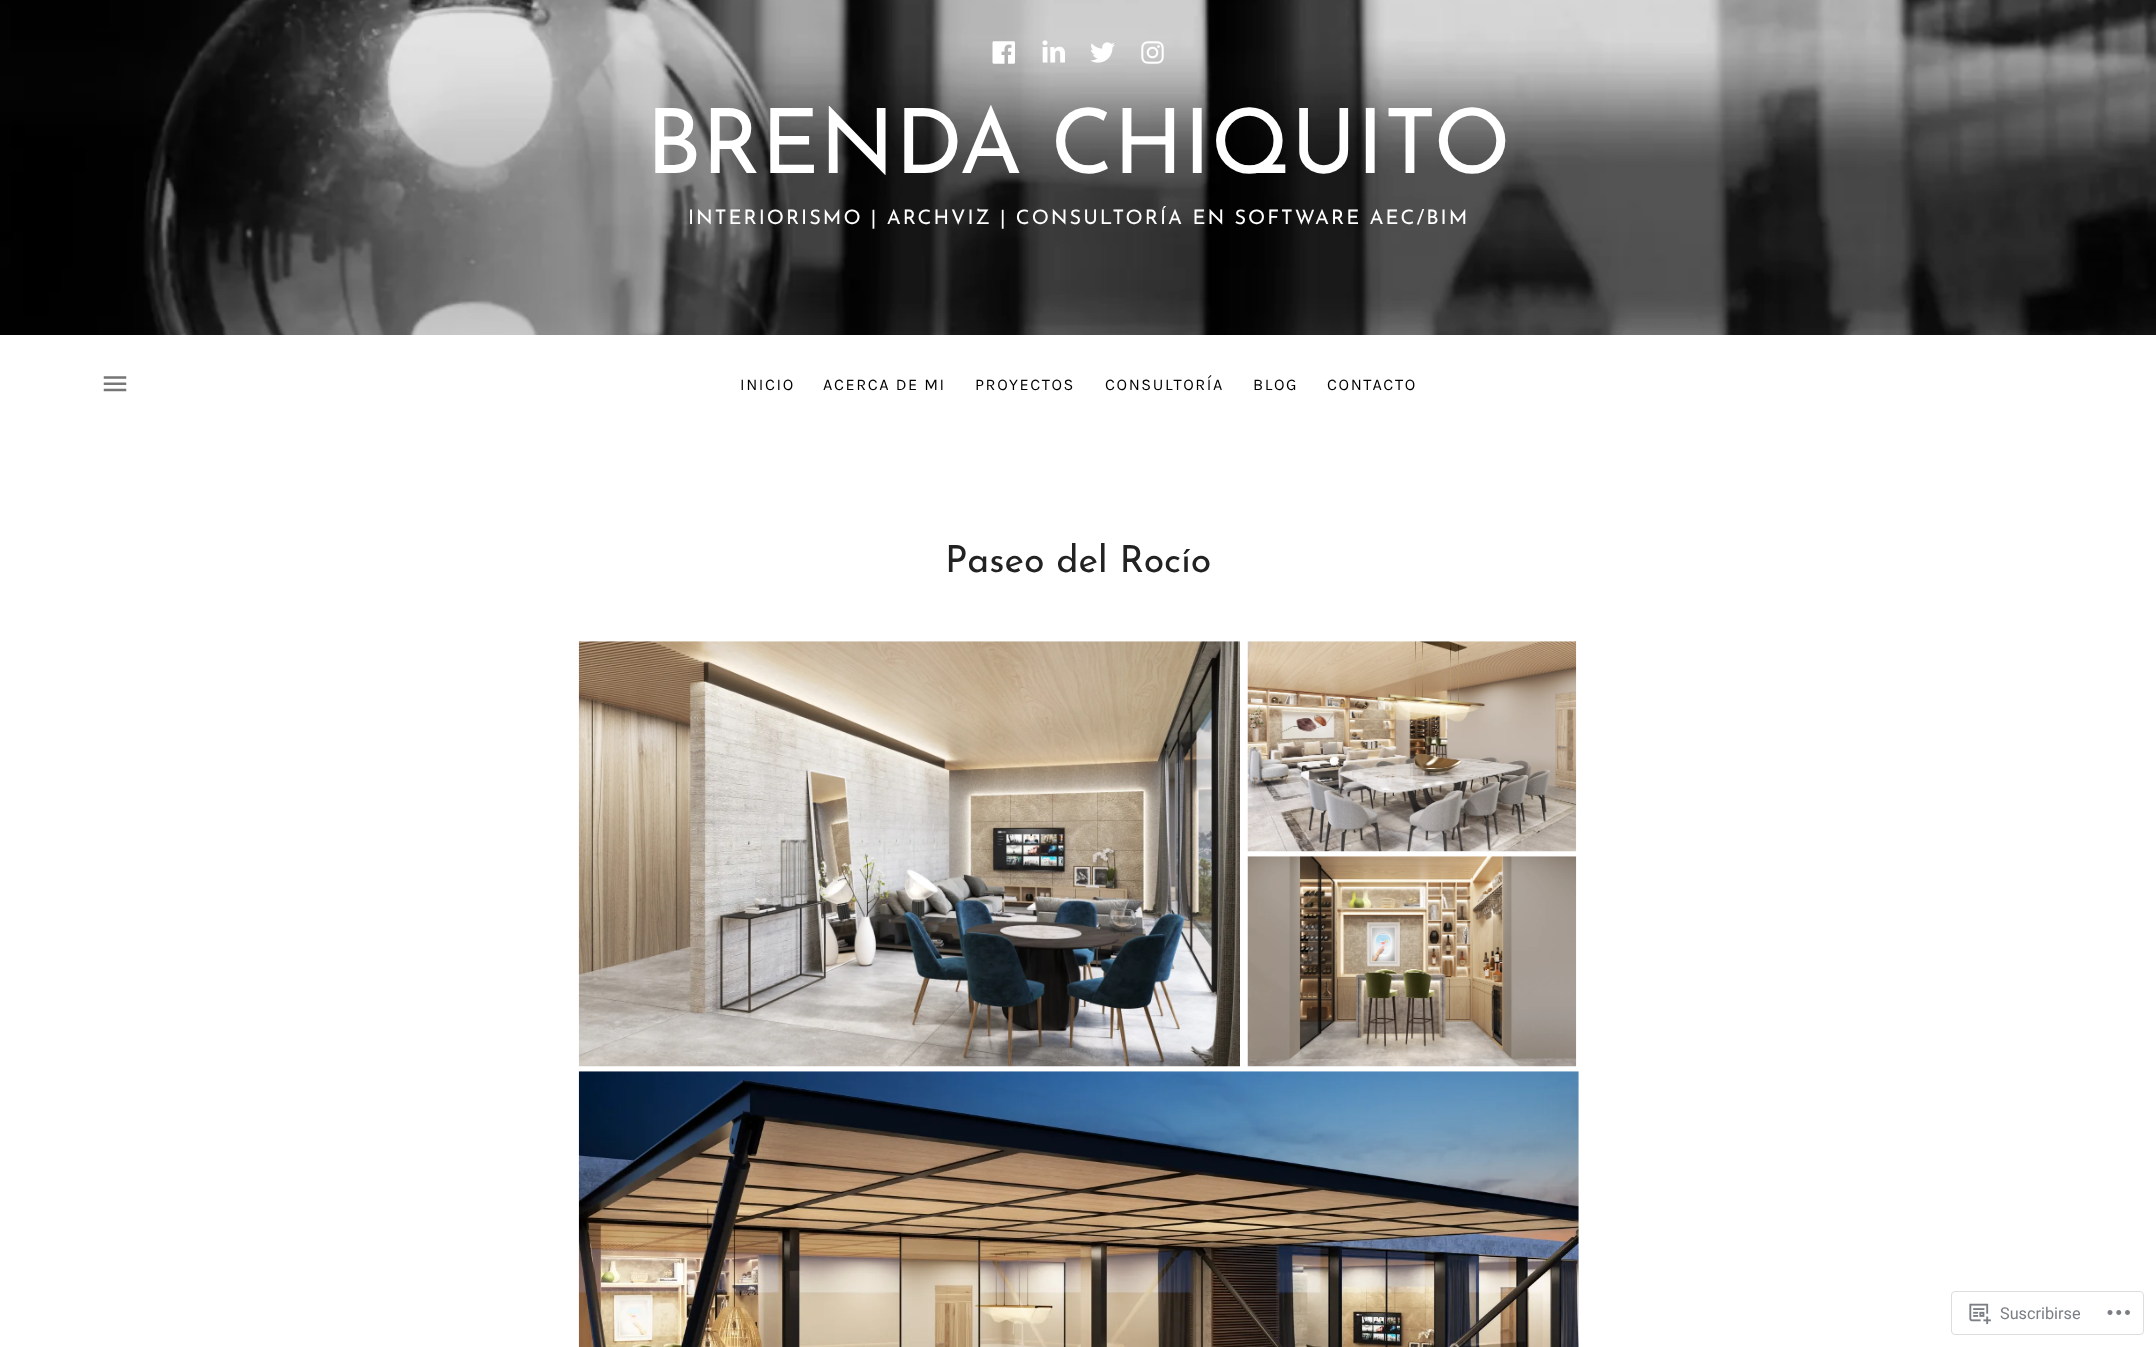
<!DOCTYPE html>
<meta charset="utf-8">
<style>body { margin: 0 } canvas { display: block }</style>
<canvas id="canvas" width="2156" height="1347"></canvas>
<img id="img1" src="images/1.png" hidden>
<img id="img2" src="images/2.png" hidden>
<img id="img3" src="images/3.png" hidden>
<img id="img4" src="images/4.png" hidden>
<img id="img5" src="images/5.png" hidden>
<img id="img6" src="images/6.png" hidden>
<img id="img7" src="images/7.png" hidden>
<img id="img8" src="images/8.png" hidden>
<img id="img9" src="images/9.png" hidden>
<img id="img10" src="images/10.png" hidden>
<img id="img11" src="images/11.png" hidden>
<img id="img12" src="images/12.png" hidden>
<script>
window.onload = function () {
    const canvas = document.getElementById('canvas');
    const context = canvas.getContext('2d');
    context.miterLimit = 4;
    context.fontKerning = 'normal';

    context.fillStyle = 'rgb(255, 255, 255)';
    context.fillRect(0, 0, 2156, 1347);
    context.drawImage(document.getElementById('img1'), 0, 0, 2156, 335);
    context.drawImage(document.getElementById('img2'), 992, 41, 23, 23);
    context.drawImage(document.getElementById('img3'), 1042, 40, 23, 23);
    context.drawImage(document.getElementById('img4'), 1090, 42, 25, 21);
    context.drawImage(document.getElementById('img5'), 1141, 41, 23, 23);
    context.drawImage(document.getElementById('img6'), 103, 376, 24, 16);
    context.drawImage(document.getElementById('img7'), 578, 641, 662, 426);
    context.drawImage(document.getElementById('img8'), 1247, 641, 330, 211);
    context.drawImage(document.getElementById('img9'), 1247, 856, 330, 211);
    context.drawImage(document.getElementById('img10'), 578, 1071, 1001, 276);
    context.beginPath();
    context.roundRect(1951.5, 1291.5, 192, 43, 3.5);
    context.strokeStyle = 'rgb(221, 221, 223)';
    context.stroke();
    context.drawImage(document.getElementById('img11'), 1969, 1303, 22, 22);
    context.drawImage(document.getElementById('img12'), 2107, 1310, 23, 5);
    context.font = '100 90px Josefin Sans';
    context.fillText('BRENDA CHIQUITO', 646, 173);
    context.letterSpacing = '2px';
    context.font = '100 20px Josefin Sans';
    context.fillText('INTERIORISMO | ARCHVIZ | CONSULTORÍA EN SOFTWARE AEC/BIM', 688, 224);
    context.letterSpacing = '1.6px';
    context.font = '16.25px Karla';
    context.fillStyle = 'rgb(0, 0, 0)';
    context.fillText('INICIO', 740, 390);
    context.fillText('ACERCA DE MI', 823, 390);
    context.fillText('PROYECTOS', 975, 390);
    context.fillText('CONSULTORÍA', 1105, 390);
    context.fillText('BLOG', 1253, 390);
    context.fillText('CONTACTO', 1327, 390);
    context.letterSpacing = '0px';
    context.font = '100 37.5px Josefin Sans';
    context.fillStyle = 'rgb(34, 34, 34)';
    context.fillText('Paseo del Rocío', 945, 572);
    context.font = '16.25px Roboto';
    context.fillStyle = 'rgb(123, 127, 133)';
    context.fillText('Suscribirse', 2000, 1319);
};
</script>
